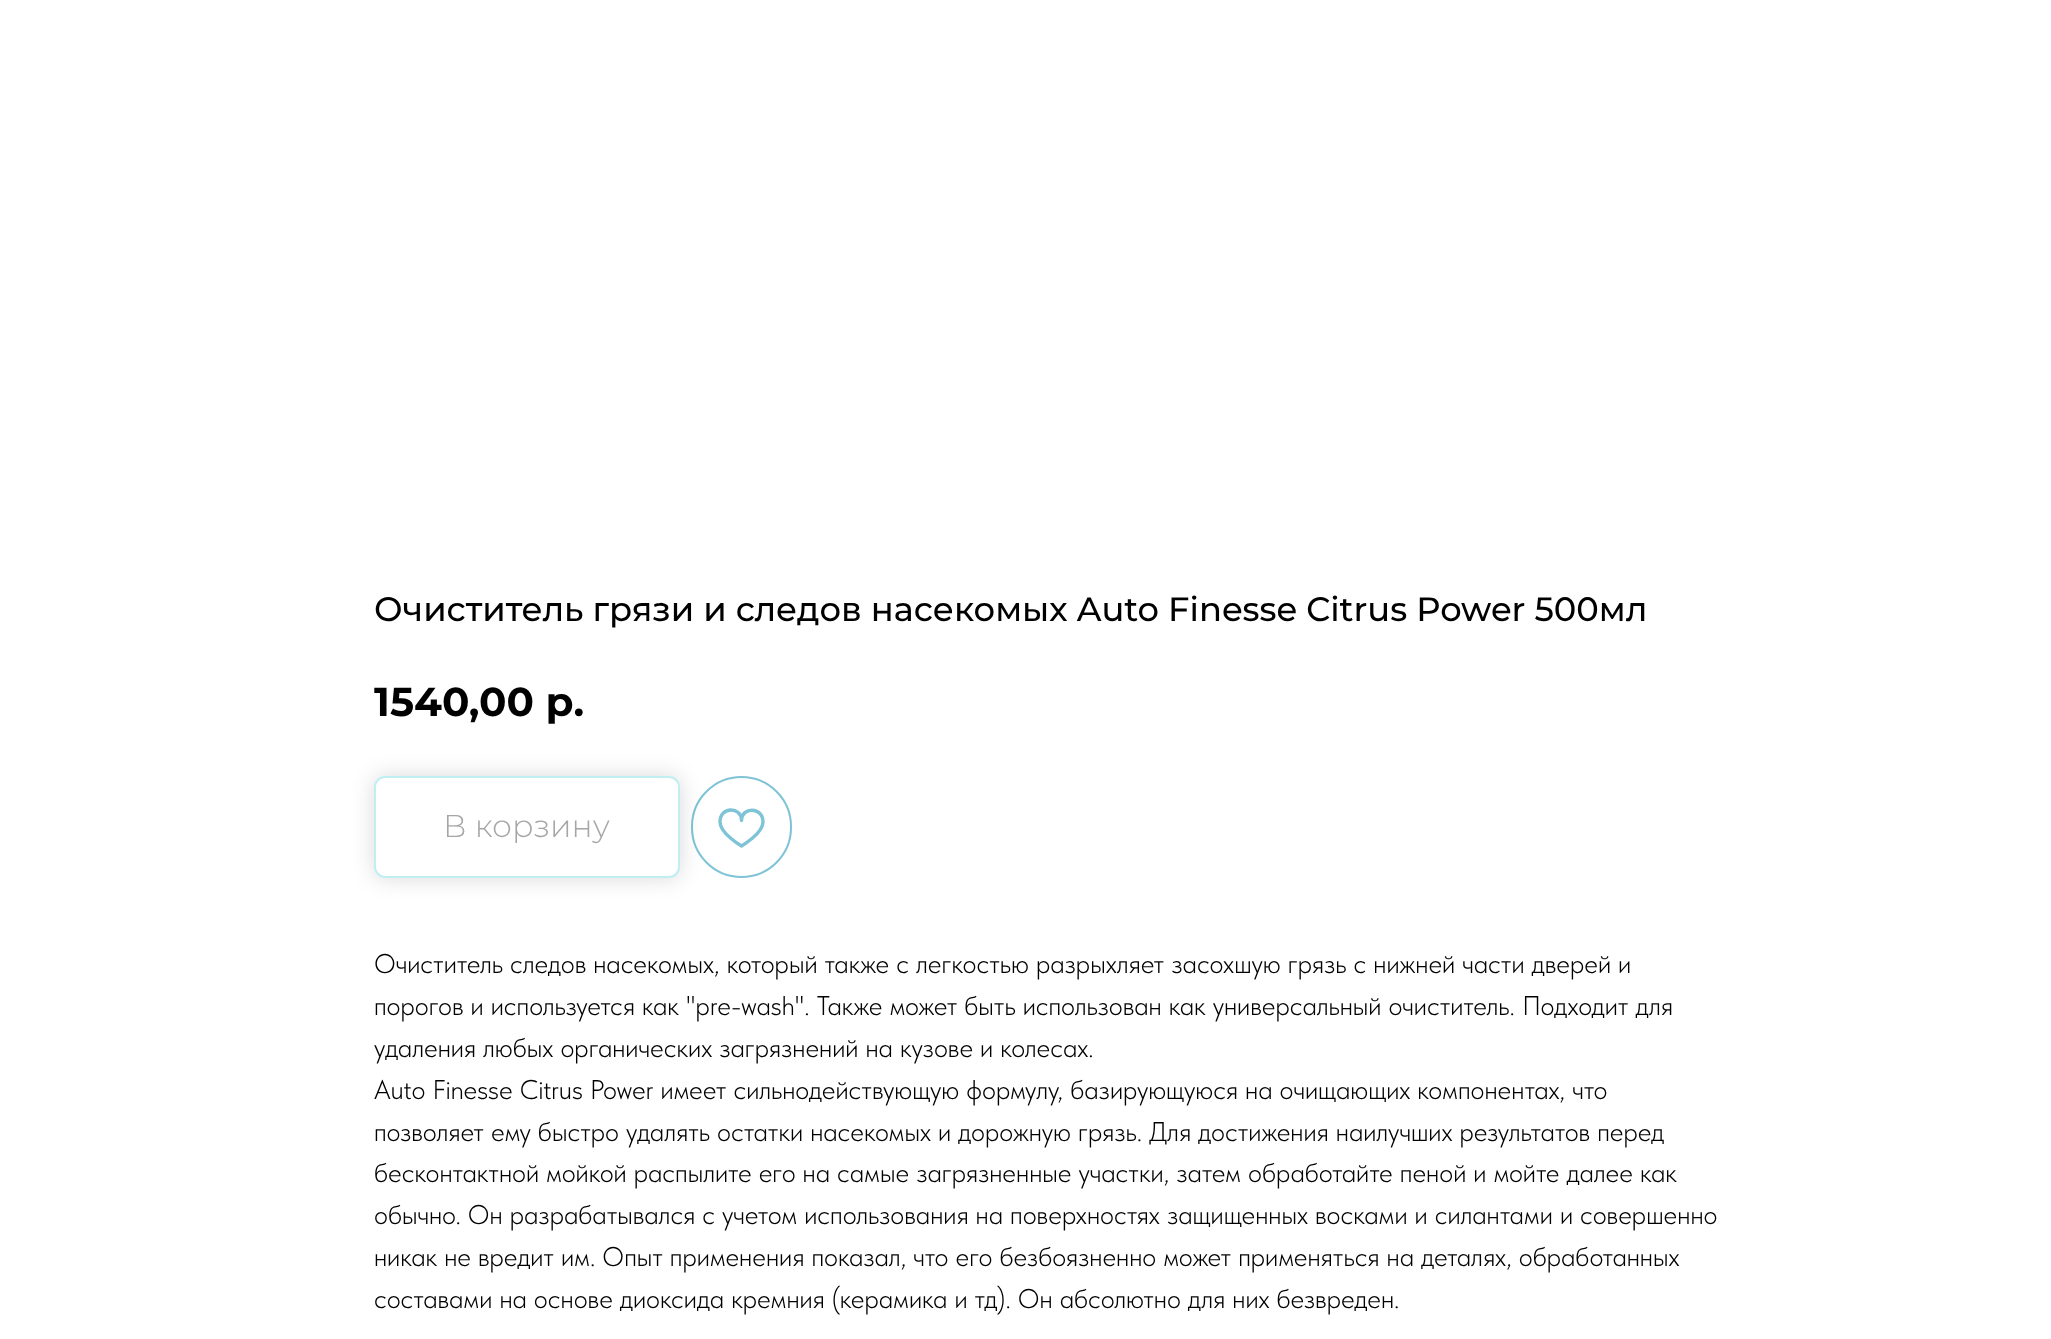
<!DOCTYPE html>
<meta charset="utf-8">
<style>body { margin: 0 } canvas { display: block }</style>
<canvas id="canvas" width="2051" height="1339"></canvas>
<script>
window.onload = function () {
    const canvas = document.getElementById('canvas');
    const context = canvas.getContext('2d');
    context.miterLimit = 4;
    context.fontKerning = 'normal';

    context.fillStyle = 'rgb(255, 255, 255)';
    context.fillRect(0, 0, 2051, 1339);
    context.beginPath();
    context.roundRect(692, 777, 99, 100, 49.5);
    context.strokeStyle = 'rgb(126, 195, 214)';
    context.lineWidth = 2;
    context.stroke();
    context.fillStyle = 'rgba(0, 0, 0, 0.15)';
    context.filter = 'blur(11px)';
    context.beginPath();
    context.roundRect(374, 776, 306, 102, 11);
    context.fill();
    context.filter = 'none';
    context.fillStyle = 'rgb(255, 255, 255)';
    context.beginPath();
    context.roundRect(375, 777, 304, 100, 10);
    context.fill();
    context.strokeStyle = 'rgb(192, 239, 243)';
    context.stroke();
    context.beginPath();
    context.moveTo(763, 822);
    context.bezierCurveTo(763, 833.5, 741.5, 846, 741.5, 846);
    context.bezierCurveTo(741.5, 846, 720, 833.5, 720, 822);
    context.bezierCurveTo(720, 806, 741.5, 806.5, 741.5, 820.5);
    context.bezierCurveTo(741.5, 806.5, 763, 806.5, 763, 822);
    context.closePath();
    context.strokeStyle = 'rgb(126, 195, 214)';
    context.lineWidth = 3.4;
    context.lineJoin = 'round';
    context.stroke();
    context.font = '500 33.75px Montserrat';
    context.fillStyle = 'rgb(0, 0, 0)';
    context.fillText('Очиститель грязи и следов насекомых Auto Finesse Citrus Power 500мл', 374, 621);
    context.font = 'bold 40.5px Montserrat';
    context.fillText('1540,00 р.', 374, 716);
    context.font = '300 31.5px Montserrat';
    context.fillStyle = 'rgb(166, 166, 166)';
    context.fillText('В корзину', 443, 837);
    context.font = '300 27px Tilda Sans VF';
    context.fillStyle = 'rgb(0, 0, 0)';
    context.fillText('Очиститель следов насекомых, который также с легкостью разрыхляет засохшую грязь с нижней части дверей и', 374, 973);
    context.fillText('порогов и используется как "pre-wash". Также может быть использован как универсальный очиститель. Подходит для', 374, 1015);
    context.fillText('удаления любых органических загрязнений на кузове и колесах.', 374, 1057);
    context.fillText('Auto Finesse Citrus Power имеет сильнодействующую формулу, базирующуюся на очищающих компонентах, что', 374, 1099);
    context.fillText('позволяет ему быстро удалять остатки насекомых и дорожную грязь. Для достижения наилучших результатов перед', 374, 1141);
    context.fillText('бесконтактной мойкой распылите его на самые загрязненные участки, затем обработайте пеной и мойте далее как', 374, 1182);
    context.fillText('обычно. Он разрабатывался с учетом использования на поверхностях защищенных восками и силантами и совершенно', 374, 1224);
    context.fillText('никак не вредит им. Опыт применения показал, что его безбоязненно может применяться на деталях, обработанных', 374, 1266);
    context.fillText('составами на основе диоксида кремния (керамика и тд). Он абсолютно для них безвреден.', 374, 1308);
};
</script>
